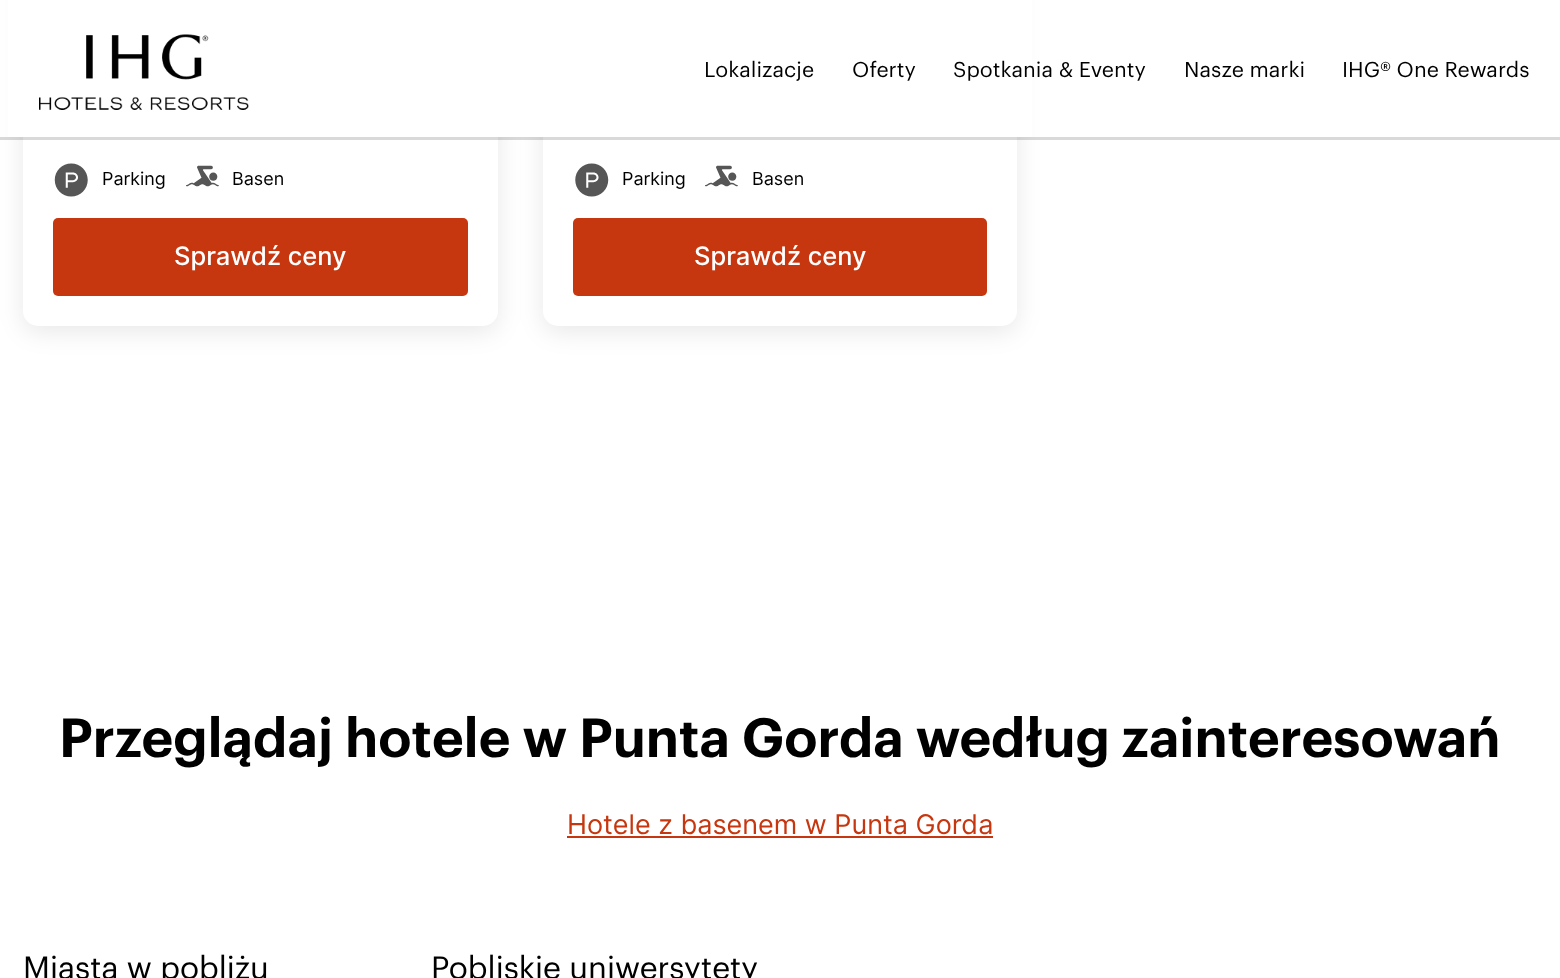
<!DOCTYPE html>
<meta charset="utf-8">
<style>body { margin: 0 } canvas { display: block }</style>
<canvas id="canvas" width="1560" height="978"></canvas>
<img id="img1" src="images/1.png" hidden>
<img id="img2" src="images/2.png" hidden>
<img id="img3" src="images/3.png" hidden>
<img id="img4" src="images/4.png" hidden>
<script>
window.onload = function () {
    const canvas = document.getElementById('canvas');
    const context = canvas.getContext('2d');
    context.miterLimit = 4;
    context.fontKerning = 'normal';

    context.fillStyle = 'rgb(255, 255, 255)';
    context.fillRect(0, 0, 1560, 978);
    context.fillStyle = 'rgba(0, 0, 0, 0.09)';
    context.filter = 'blur(12px)';
    context.beginPath();
    context.roundRect(23, -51, 475, 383, 15);
    context.fill();
    context.filter = 'none';
    context.fillStyle = 'rgb(255, 255, 255)';
    context.beginPath();
    context.roundRect(23, -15, 475, 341, 15);
    context.fill();
    context.fillStyle = 'rgba(0, 0, 0, 0.09)';
    context.filter = 'blur(12px)';
    context.beginPath();
    context.roundRect(543, -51, 474, 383, 15);
    context.fill();
    context.filter = 'none';
    context.fillStyle = 'rgb(255, 255, 255)';
    context.beginPath();
    context.roundRect(543, -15, 474, 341, 15);
    context.fill();
    context.fillStyle = 'rgba(0, 0, 0, 0.15)';
    context.fillRect(0, 137, 1560, 3);
    context.fillStyle = 'rgb(255, 255, 255)';
    context.fillRect(8, 0, 1024, 137);
    context.drawImage(document.getElementById('img1'), 39, 34, 210, 76);
    context.drawImage(document.getElementById('img2'), 54, 163, 34, 34);
    context.drawImage(document.getElementById('img3'), 186, 165, 33, 22);
    context.fillStyle = 'rgb(199, 55, 15)';
    context.beginPath();
    context.roundRect(53, 218, 415, 78, 5);
    context.fill();
    context.drawImage(document.getElementById('img4'), 575, 163, 34, 34);
    context.drawImage(document.getElementById('img3'), 705, 165, 33, 22);
    context.beginPath();
    context.roundRect(573, 218, 414, 78, 5);
    context.fill();
    context.fillRect(567, 836, 426, 2);
    context.font = '21px "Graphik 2"';
    context.fillStyle = 'rgb(0, 0, 0)';
    context.fillText('Lokalizacje', 704, 77);
    context.fillText('Oferty', 852, 77);
    context.fillText('Spotkania & Eventy', 953, 77);
    context.fillText('Nasze marki', 1184, 77);
    context.fillText('IHG® One Rewards', 1342, 77);
    context.font = '18px Inter';
    context.fillText('Parking', 102, 185);
    context.fillText('Basen', 232, 185);
    context.font = '500 25.5px Inter';
    context.fillStyle = 'rgb(255, 255, 255)';
    context.fillText('Sprawdź ceny', 174, 265);
    context.font = '18px Inter';
    context.fillStyle = 'rgb(0, 0, 0)';
    context.fillText('Parking', 622, 185);
    context.fillText('Basen', 752, 185);
    context.font = '500 25.5px Inter';
    context.fillStyle = 'rgb(255, 255, 255)';
    context.fillText('Sprawdź ceny', 694, 265);
    context.font = '600 54px Graphik';
    context.fillStyle = 'rgb(0, 0, 0)';
    context.fillText('Przeglądaj hotele w Punta Gorda według zainteresowań', 59, 757);
    context.font = '27px Inter';
    context.fillStyle = 'rgb(199, 55, 15)';
    context.fillText('Hotele z basenem w Punta Gorda', 567, 834);
    context.font = '31.5px Graphik';
    context.fillStyle = 'rgb(0, 0, 0)';
    context.fillText('Miasta w pobliżu', 23, 979);
    context.fillText('Pobliskie uniwersytety', 431, 979);
};
</script>
